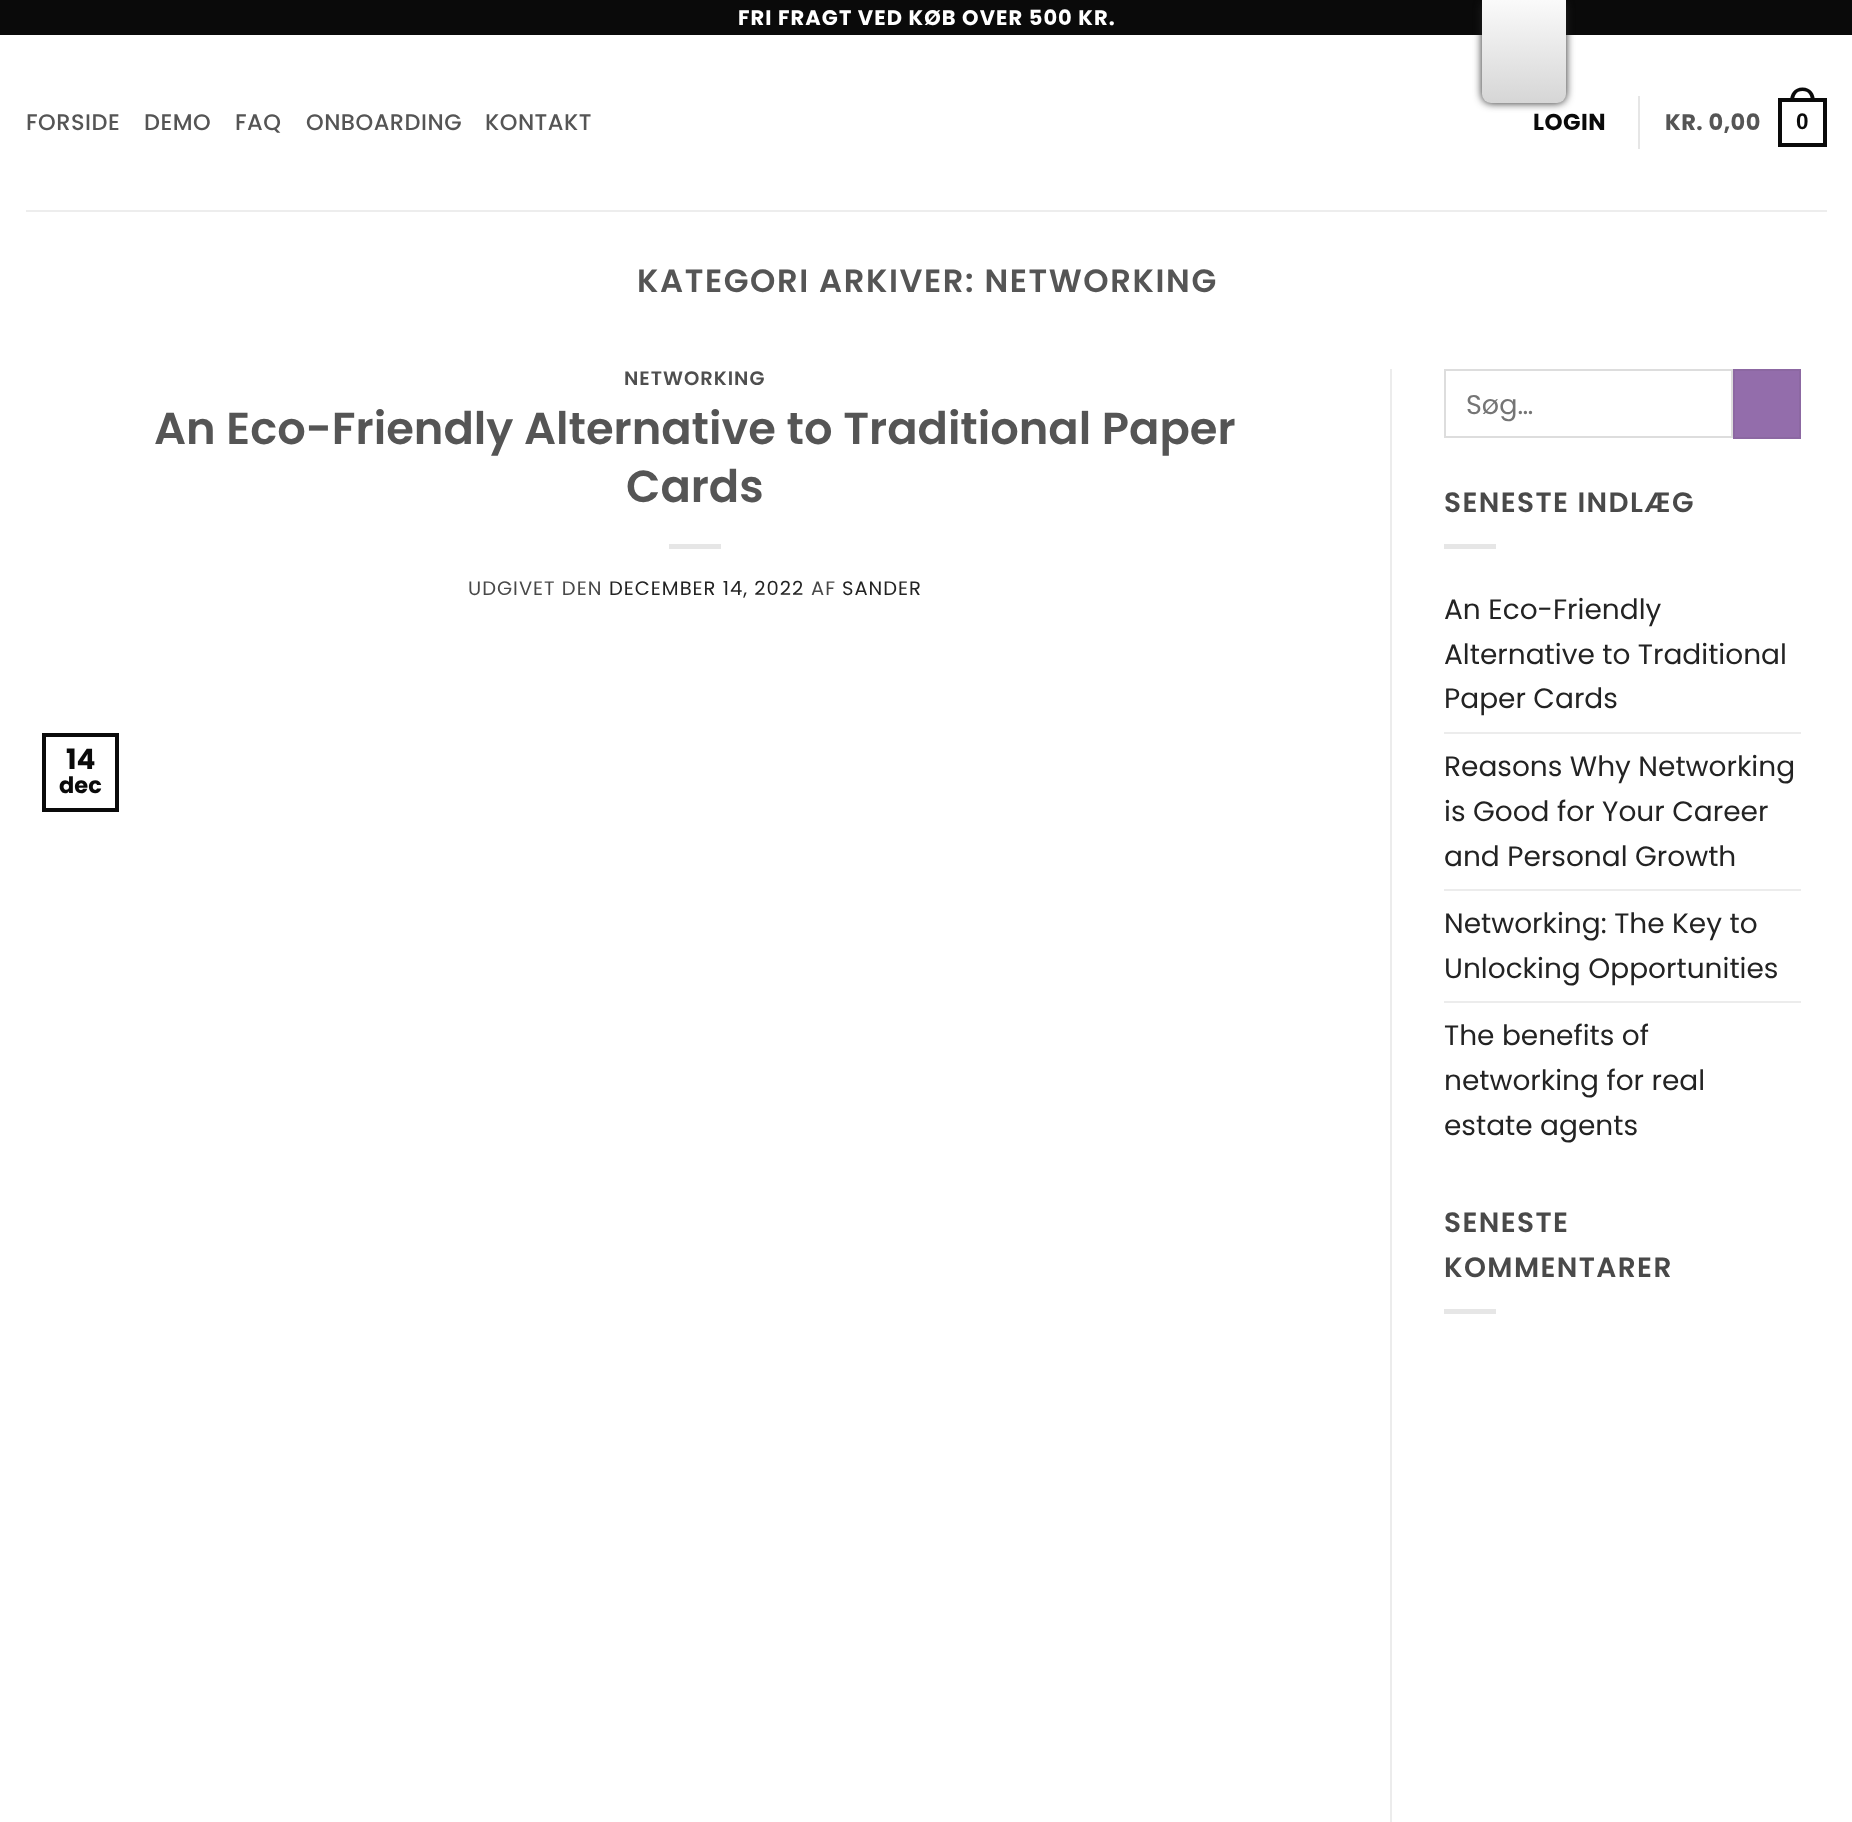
<!DOCTYPE html>
<meta charset="utf-8">
<style>body { margin: 0 } canvas { display: block }</style>
<canvas id="canvas" width="1852" height="1822"></canvas>
<script>
window.onload = function () {
    const canvas = document.getElementById('canvas');
    const context = canvas.getContext('2d');
    context.miterLimit = 4;
    context.fontKerning = 'normal';
    let gradient;

    context.fillStyle = 'rgb(255, 255, 255)';
    context.fillRect(0, 0, 1852, 1822);
    context.fillStyle = 'rgb(10, 10, 10)';
    context.fillRect(0, 0, 1852, 35);
    context.fillStyle = 'rgb(33, 33, 33)';
    context.filter = 'blur(4.5px)';
    context.beginPath();
    context.roundRect(1482, 0, 84, 103, 9);
    context.fill();
    context.filter = 'none';
    gradient = context.createLinearGradient(1524, 103, 1524, 0);
    gradient.addColorStop(0, 'rgb(214, 214, 214)');
    gradient.addColorStop(1, 'rgb(250, 250, 250)');
    context.fillStyle = gradient;
    context.beginPath();
    context.roundRect(1482, 0, 84, 103, [0, 0, 9, 9]);
    context.fill();
    context.fillStyle = 'rgb(230, 230, 230)';
    context.fillRect(1638, 96, 2, 53);
    context.strokeStyle = 'rgb(10, 10, 10)';
    context.lineWidth = 4;
    context.strokeRect(1780, 100, 45, 45);
    context.fillStyle = 'rgb(10, 10, 10)';
    context.beginPath();
    context.moveTo(1802.5, 87.5);
    context.bezierCurveTo(1811, 87.5, 1815, 94, 1815, 101.5);
    context.lineTo(1790, 101.5);
    context.bezierCurveTo(1790, 94, 1794, 87.5, 1802.5, 87.5);
    context.closePath();
    context.moveTo(1802.5, 91);
    context.bezierCurveTo(1809, 91, 1811, 96, 1811, 101.5);
    context.lineTo(1794, 101.5);
    context.bezierCurveTo(1794, 96, 1796, 91, 1802.5, 91);
    context.closePath();
    context.fill('evenodd');
    context.fillStyle = 'rgb(237, 237, 237)';
    context.fillRect(26, 210, 1801, 2);
    context.fillStyle = 'rgb(230, 230, 230)';
    context.fillRect(669, 544, 52, 5);
    context.strokeRect(44, 735, 73, 75);
    context.fillStyle = 'rgb(236, 236, 236)';
    context.fillRect(1390, 369, 2, 1453);
    context.strokeStyle = 'rgb(221, 221, 221)';
    context.lineWidth = 2;
    context.strokeRect(1445, 370, 287, 67);
    context.fillStyle = 'rgb(147, 109, 171)';
    context.beginPath();
    context.rect(1734, 370, 66, 68);
    context.fill();
    context.strokeStyle = 'rgb(140, 104, 162)';
    context.stroke();
    context.fillStyle = 'rgb(230, 230, 230)';
    context.fillRect(1444, 544, 52, 5);
    context.fillStyle = 'rgb(236, 236, 236)';
    context.fillRect(1444, 732, 357, 2);
    context.fillRect(1444, 889, 357, 2);
    context.fillRect(1444, 1001, 357, 2);
    context.fillStyle = 'rgb(230, 230, 230)';
    context.fillRect(1444, 1309, 52, 5);
    context.letterSpacing = '1.05px';
    context.font = 'bold 21px Poppins';
    context.fillStyle = 'rgb(255, 255, 255)';
    context.fillText('FRI FRAGT VED KØB OVER 500 KR.', 738, 25);
    context.letterSpacing = '0.5px';
    context.font = '500 22.5px Poppins';
    context.fillStyle = 'rgb(85, 85, 85)';
    context.fillText('FORSIDE', 26, 130);
    context.fillText('DEMO', 144, 130);
    context.fillText('FAQ', 235, 130);
    context.fillText('ONBOARDING', 306, 130);
    context.fillText('KONTAKT', 485, 130);
    context.font = 'bold 23px Poppins';
    context.fillStyle = 'rgb(10, 10, 10)';
    context.fillText('LOGIN', 1533, 130);
    context.font = 'bold 22.5px Poppins';
    context.fillStyle = 'rgb(85, 85, 85)';
    context.fillText('KR. 0,00', 1665, 130);
    context.font = 'bold 22.5px Liberation Sans';
    context.fillStyle = 'rgb(10, 10, 10)';
    context.fillText('0', 1796, 129);
    context.letterSpacing = '1.6px';
    context.font = '600 32.25px Poppins';
    context.fillStyle = 'rgb(85, 85, 85)';
    context.fillText('KATEGORI ARKIVER: NETWORKING', 637, 292);
    context.letterSpacing = '1px';
    context.font = '600 19.5px Poppins';
    context.fillStyle = 'rgb(79, 79, 79)';
    context.fillText('NETWORKING', 624, 385);
    context.letterSpacing = '0px';
    context.font = '600 44.8px Poppins';
    context.fillStyle = 'rgb(85, 85, 85)';
    context.fillText('An Eco-Friendly Alternative to Traditional Paper', 154, 444);
    context.fillText('Cards', 626, 502);
    context.letterSpacing = '1px';
    context.font = '19.5px Poppins';
    context.fillStyle = 'rgb(73, 73, 73)';
    context.fillText('UDGIVET DEN', 468, 595);
    context.fillStyle = 'rgb(35, 35, 35)';
    context.fillText('DECEMBER 14, 2022', 609, 595);
    context.fillStyle = 'rgb(73, 73, 73)';
    context.fillText('AF', 811, 595);
    context.fillStyle = 'rgb(35, 35, 35)';
    context.fillText('SANDER', 842, 595);
    context.letterSpacing = '0px';
    context.font = 'bold 28px Poppins';
    context.fillStyle = 'rgb(10, 10, 10)';
    context.fillText('14', 66, 769);
    context.font = 'bold 22.5px Poppins';
    context.fillText('dec', 59, 793);
    context.font = '27px Poppins';
    context.fillStyle = 'rgb(117, 117, 117)';
    context.fillText('Søg…', 1466, 414);
    context.letterSpacing = '1.4px';
    context.font = '600 28px Poppins';
    context.fillStyle = 'rgb(73, 73, 73)';
    context.fillText('SENESTE INDLÆG', 1444, 512);
    context.letterSpacing = '0px';
    context.font = '28px Poppins';
    context.fillStyle = 'rgb(35, 35, 35)';
    context.fillText('An Eco-Friendly', 1444, 619);
    context.fillText('Alternative to Traditional', 1444, 664);
    context.fillText('Paper Cards', 1444, 708);
    context.fillText('Reasons Why Networking', 1444, 776);
    context.fillText('is Good for Your Career', 1444, 821);
    context.fillText('and Personal Growth', 1444, 866);
    context.fillText('Networking: The Key to', 1444, 933);
    context.fillText('Unlocking Opportunities', 1444, 978);
    context.fillText('The benefits of', 1444, 1045);
    context.fillText('networking for real', 1444, 1090);
    context.fillText('estate agents', 1444, 1135);
    context.letterSpacing = '1.4px';
    context.font = '600 28px Poppins';
    context.fillStyle = 'rgb(73, 73, 73)';
    context.fillText('SENESTE', 1444, 1232);
    context.fillText('KOMMENTARER', 1444, 1277);
};
</script>
